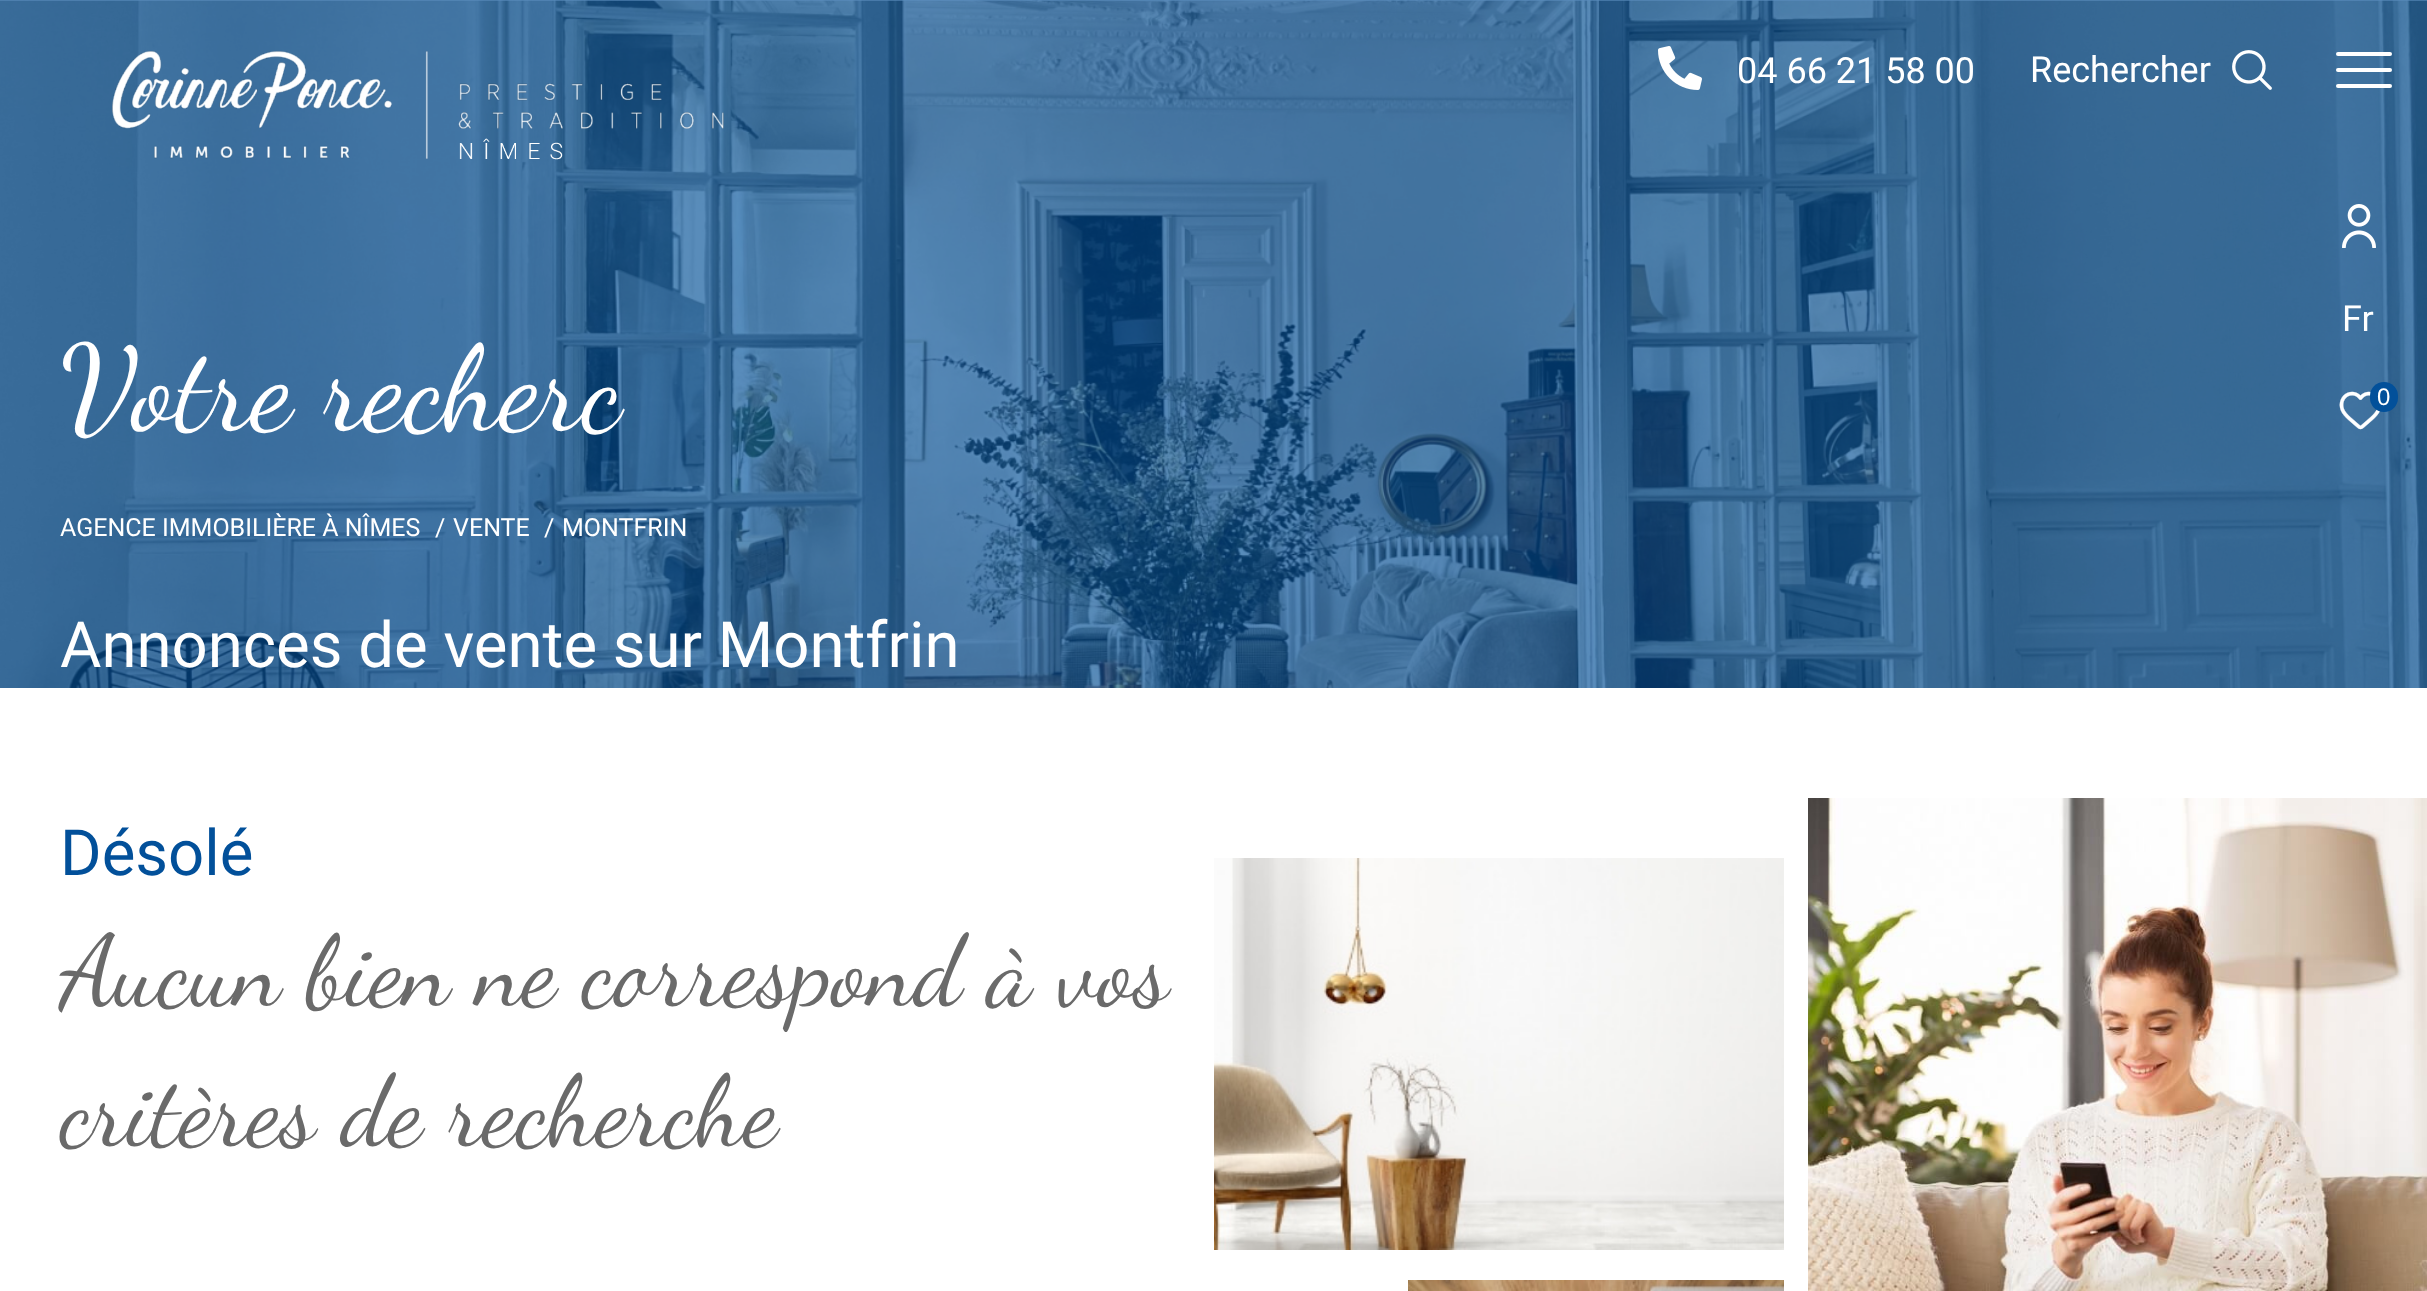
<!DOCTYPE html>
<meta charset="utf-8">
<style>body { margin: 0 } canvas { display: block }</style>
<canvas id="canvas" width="2427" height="1291"></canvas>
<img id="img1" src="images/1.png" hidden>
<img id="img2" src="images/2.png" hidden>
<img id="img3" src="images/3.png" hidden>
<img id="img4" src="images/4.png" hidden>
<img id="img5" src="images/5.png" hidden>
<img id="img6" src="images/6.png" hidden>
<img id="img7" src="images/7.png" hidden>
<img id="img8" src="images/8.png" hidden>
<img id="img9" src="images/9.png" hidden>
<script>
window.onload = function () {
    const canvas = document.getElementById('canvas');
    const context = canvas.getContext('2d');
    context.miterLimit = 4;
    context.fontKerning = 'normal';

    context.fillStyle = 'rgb(91, 141, 189)';
    context.fillRect(0, 0, 2427, 1291);
    context.drawImage(document.getElementById('img1'), 0, 0, 2427, 688);
    context.drawImage(document.getElementById('img2'), 112, 51, 612, 109);
    context.drawImage(document.getElementById('img3'), 1658, 46, 44, 44);
    context.drawImage(document.getElementById('img4'), 2232, 50, 40, 40);
    context.fillStyle = 'rgb(255, 255, 255)';
    context.beginPath();
    context.roundRect(2336, 68, 56, 4, 2);
    context.fill();
    context.beginPath();
    context.roundRect(2336, 52, 56, 4, 2);
    context.fill();
    context.beginPath();
    context.roundRect(2336, 84, 56, 4, 2);
    context.fill();
    context.drawImage(document.getElementById('img5'), 2342, 204, 34, 44);
    context.drawImage(document.getElementById('img6'), 2339, 391, 41, 39);
    context.fillStyle = 'rgb(2, 80, 154)';
    context.beginPath();
    context.roundRect(2370, 382, 28, 30, 14);
    context.fill();
    context.fillStyle = 'rgb(255, 255, 255)';
    context.fillRect(0, 688, 2427, 603);
    context.drawImage(document.getElementById('img7'), 1214, 858, 570, 392);
    context.drawImage(document.getElementById('img8'), 1408, 1280, 376, 11);
    context.drawImage(document.getElementById('img9'), 1808, 798, 619, 493);
    context.font = '36px Roboto';
    context.fillText('04 66 21 58 00', 1737, 83);
    context.fillText('Rechercher', 2030, 82);
    context.font = '120px Dancing Script';
    context.fillText('V', 60, 428);
    context.fillText('otre recherc', 132, 428);
    context.font = '25px Roboto';
    context.fillText('AGENCE IMMOBILIÈRE À NÎMES', 60, 536);
    context.fillText('/', 435, 536);
    context.fillText('VENTE', 453, 536);
    context.fillText('/', 544, 536);
    context.fillText('MONTFRIN', 562, 536);
    context.font = '63.5px Roboto';
    context.fillText('Annonces de vente sur Montfrin', 60, 667);
    context.font = '36px Roboto';
    context.fillText('Fr', 2342, 331);
    context.font = '24px Liberation Sans';
    context.fillText('0', 2377, 405);
    context.font = '63.5px Roboto';
    context.fillStyle = 'rgb(2, 80, 154)';
    context.fillText('Désolé', 60, 875);
    context.font = '100px Dancing Script';
    context.fillStyle = 'rgb(106, 106, 106)';
    context.fillText('Aucun bien ne correspond à vos', 60, 1004);
    context.fillText('critères de recherche', 60, 1144);
};
</script>
